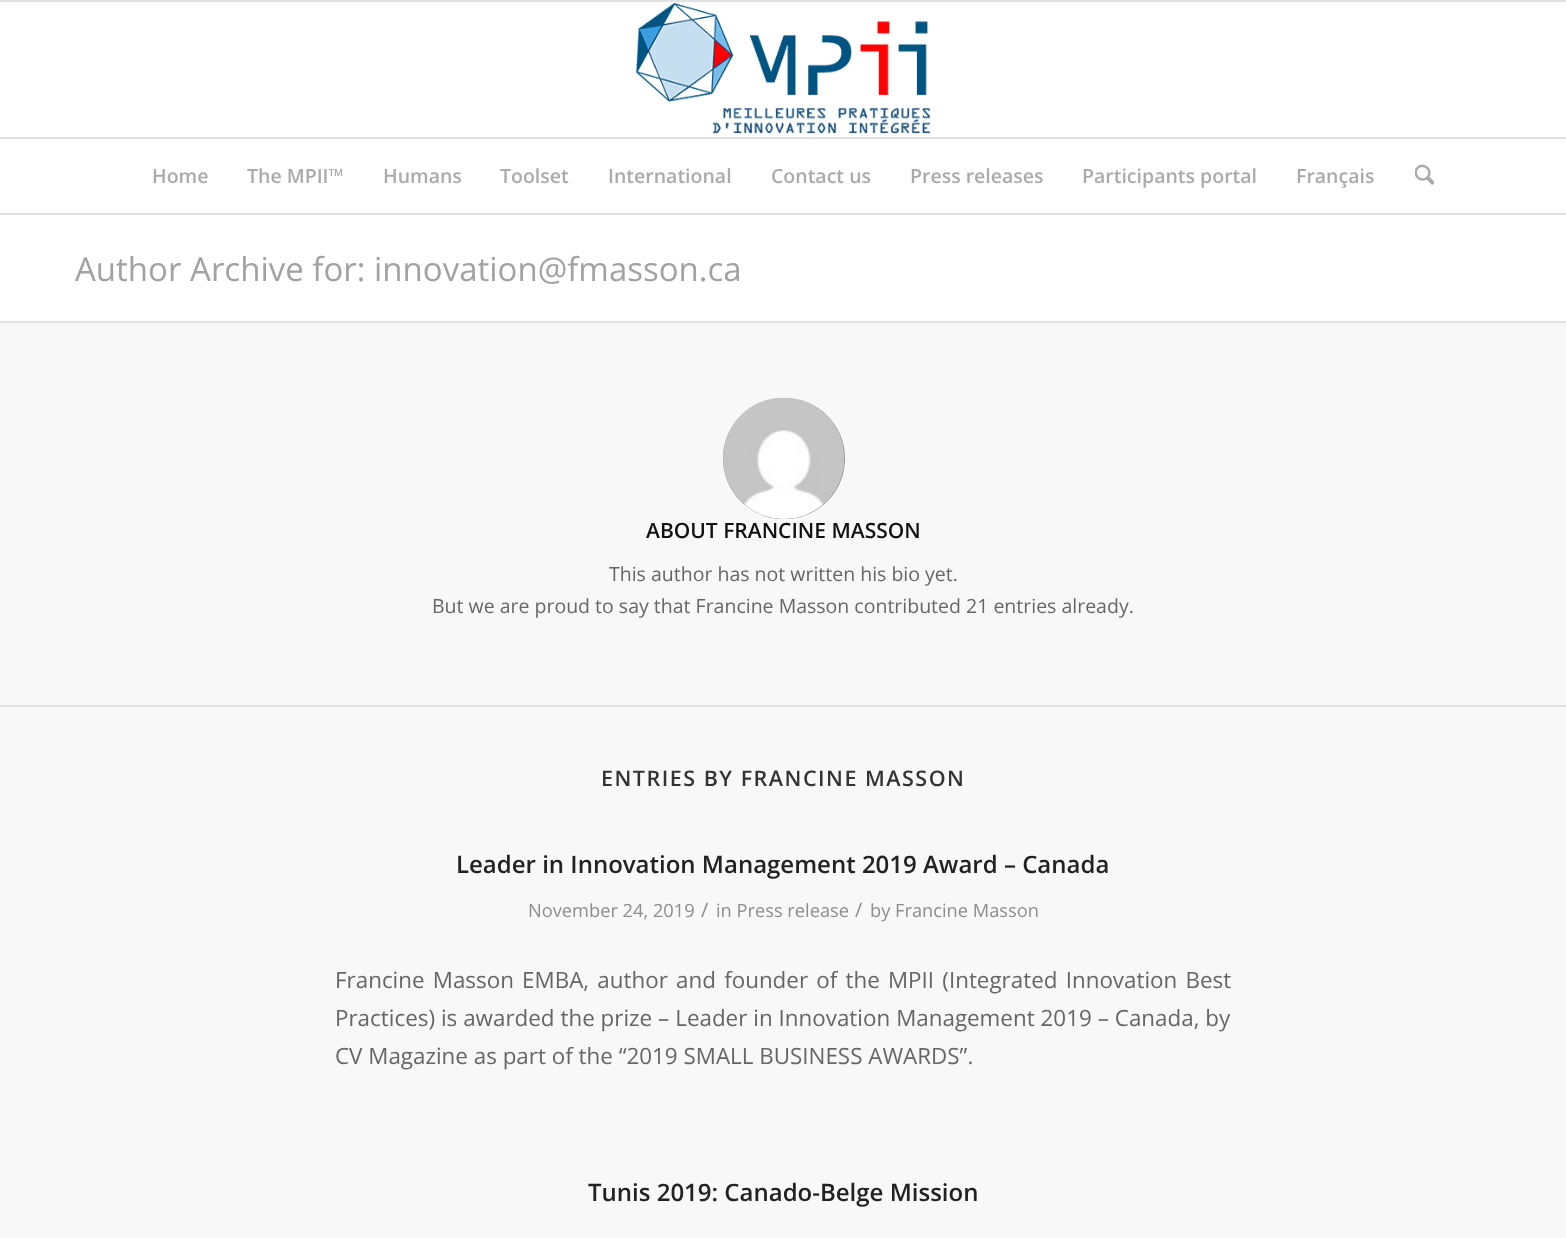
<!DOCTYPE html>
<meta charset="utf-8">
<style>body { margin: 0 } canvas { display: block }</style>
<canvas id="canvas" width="1566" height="1238"></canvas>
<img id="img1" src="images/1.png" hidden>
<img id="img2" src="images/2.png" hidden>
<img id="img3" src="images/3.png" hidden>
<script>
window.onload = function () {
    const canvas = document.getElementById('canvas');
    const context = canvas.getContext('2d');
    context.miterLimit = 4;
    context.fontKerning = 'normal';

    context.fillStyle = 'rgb(255, 255, 255)';
    context.fillRect(0, 0, 1566, 1238);
    context.fillStyle = 'rgb(225, 225, 225)';
    context.fillRect(0, 0, 1566, 2);
    context.fillRect(0, 213, 1566, 2);
    context.drawImage(document.getElementById('img1'), 635, 3, 295, 131);
    context.fillRect(0, 137, 1566, 2);
    context.drawImage(document.getElementById('img2'), 1415, 164, 19, 21);
    context.fillStyle = 'rgb(248, 248, 248)';
    context.fillRect(0, 323, 1566, 915);
    context.fillStyle = 'rgb(225, 225, 225)';
    context.fillRect(0, 321, 1566, 2);
    context.fillStyle = 'rgb(141, 141, 141)';
    context.beginPath();
    context.roundRect(723, 398, 122, 121, 60.5);
    context.fill();
    context.drawImage(document.getElementById('img3'), 723, 397, 122, 122);
    context.fillStyle = 'rgb(225, 225, 225)';
    context.fillRect(0, 705, 1566, 2);
    context.font = '600 19.5px Open Sans';
    context.fillStyle = 'rgb(170, 170, 170)';
    context.fillText('Home', 152, 183);
    context.fillText('The MPII™', 247, 183);
    context.fillText('Humans', 383, 183);
    context.fillText('Toolset', 500, 183);
    context.fillText('International', 608, 183);
    context.fillText('Contact us', 771, 183);
    context.fillText('Press releases', 910, 183);
    context.fillText('Participants portal', 1082, 183);
    context.fillText('Français', 1296, 183);
    context.font = '33px Open Sans';
    context.fillStyle = 'rgb(162, 162, 162)';
    context.fillText('Author Archive for: innovation@fmasson.ca', 75, 281);
    context.font = '600 21px Open Sans';
    context.fillStyle = 'rgb(17, 17, 17)';
    context.fillText('ABOUT FRANCINE MASSON', 646, 538);
    context.font = '19.5px Open Sans';
    context.fillStyle = 'rgb(102, 102, 102)';
    context.fillText('This author has not written his bio yet.', 609, 581);
    context.fillText('But we are proud to say that Francine Masson contributed 21 entries already.', 432, 613);
    context.letterSpacing = '1.5px';
    context.font = '600 21.5px Open Sans';
    context.fillStyle = 'rgb(51, 51, 51)';
    context.fillText('ENTRIES BY FRANCINE MASSON', 601, 786);
    context.letterSpacing = '0px';
    context.font = '600 24px Open Sans';
    context.fillStyle = 'rgb(34, 34, 34)';
    context.fillText('Leader in Innovation Management 2019 Award – Canada', 456, 873);
    context.font = '18.25px Open Sans';
    context.fillStyle = 'rgb(141, 141, 141)';
    context.fillText('November 24, 2019', 528, 917);
    context.font = '20px Open Sans';
    context.fillText('/', 701, 917);
    context.font = '18.25px Open Sans';
    context.fillText('in Press release', 716, 917);
    context.font = '20px Open Sans';
    context.fillText('/', 855, 917);
    context.font = '18.25px Open Sans';
    context.fillText('by Francine Masson', 870, 917);
    context.wordSpacing = '2.4px';
    context.font = '22.4px Open Sans';
    context.fillStyle = 'rgb(102, 102, 102)';
    context.fillText('Francine Masson EMBA, author and founder of the MPII (Integrated Innovation Best', 335, 988);
    context.wordSpacing = '0.1px';
    context.fillText('Practices) is awarded the prize – Leader in Innovation Management 2019 – Canada, by', 335, 1026);
    context.wordSpacing = '0px';
    context.fillText('CV Magazine as part of the “2019 SMALL BUSINESS AWARDS”.', 335, 1064);
    context.font = '600 24px Open Sans';
    context.fillStyle = 'rgb(34, 34, 34)';
    context.fillText('Tunis 2019: Canado-Belge Mission', 588, 1201);
};
</script>
